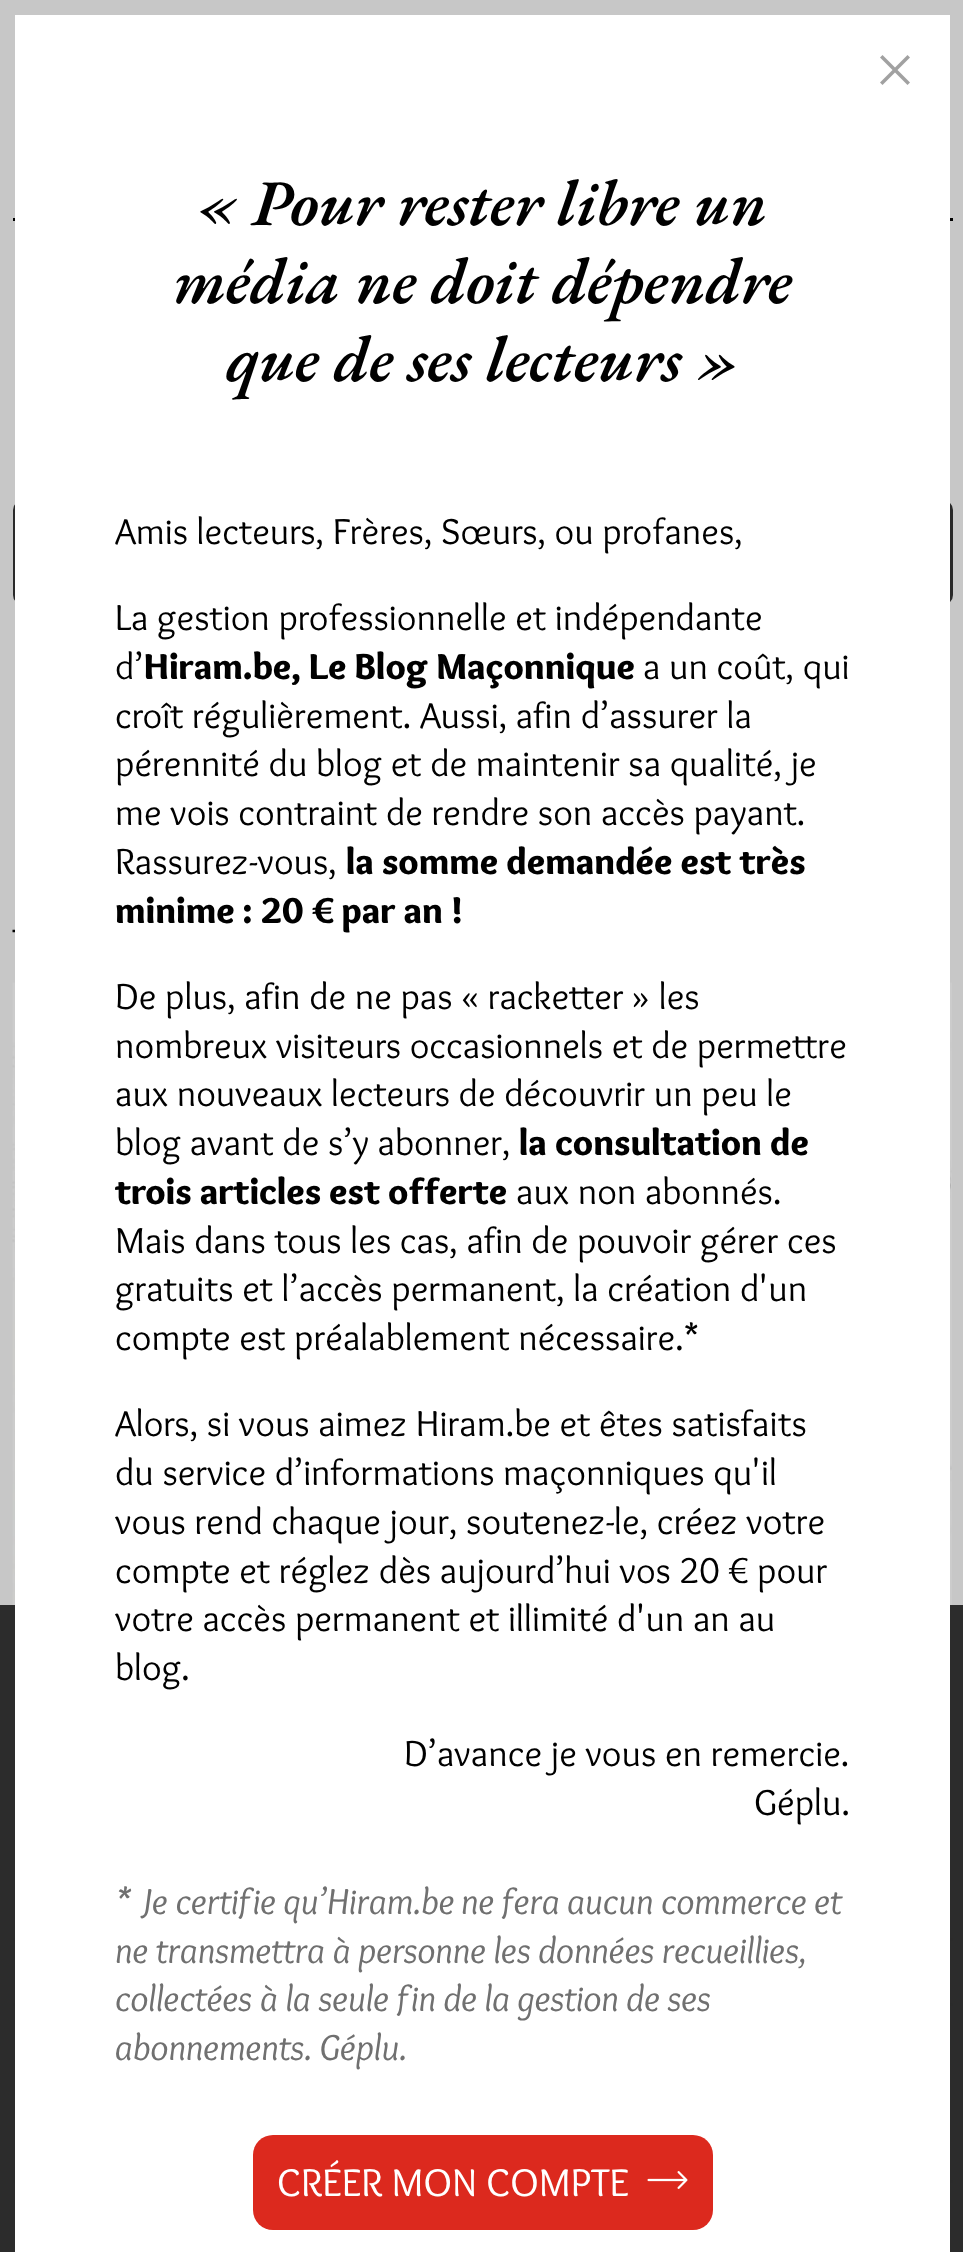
<!DOCTYPE html>
<meta charset="utf-8">
<style>body { margin: 0 } canvas { display: block }</style>
<canvas id="canvas" width="963" height="2252"></canvas>
<img id="img1" src="images/3.png" hidden>
<img id="img2" src="images/1.png" hidden>
<img id="img3" src="images/2.png" hidden>
<script>
window.onload = function () {
    const canvas = document.getElementById('canvas');
    const context = canvas.getContext('2d');
    context.miterLimit = 4;
    context.fontKerning = 'normal';

    context.fillStyle = 'rgb(199, 199, 199)';
    context.fillRect(0, 0, 963, 2252);
    context.fillStyle = 'rgb(0, 0, 0)';
    context.fillRect(13, 218, 940, 3);
    context.fillStyle = 'rgb(41, 41, 41)';
    context.beginPath();
    context.roundRect(13, 500, 940, 105, 10);
    context.fill();
    context.beginPath();
    context.moveTo(12.5, 931);
    context.lineTo(952.5, 931);
    context.strokeStyle = 'rgb(0, 0, 0)';
    context.lineWidth = 2.5;
    context.setLineDash([2.5, 2.5]);
    context.stroke();
    context.drawImage(document.getElementById('img1'), 12, 982, 940, 698);
    context.fillStyle = 'rgb(147, 147, 147)';
    context.fillRect(13, 1938, 940, 3);
    context.fillRect(13, 2003, 940, 3);
    context.fillRect(13, 2180, 940, 3);
    context.fillStyle = 'rgba(41, 41, 41, 0.98)';
    context.fillRect(0, 1605, 963, 647);
    context.fillStyle = 'rgb(255, 255, 255)';
    context.fillRect(15, 15, 935, 2237);
    context.drawImage(document.getElementById('img2'), 880, 55, 30, 30);
    context.fillStyle = 'rgb(220, 41, 30)';
    context.beginPath();
    context.roundRect(253, 2135, 460, 95, 20);
    context.fill();
    context.drawImage(document.getElementById('img3'), 647, 2171, 41, 18);
    context.font = 'italic 600 65px EB Garamond';
    context.fillStyle = 'rgb(0, 0, 0)';
    context.fillText('« Pour rester libre un', 197, 225);
    context.fillText('média ne doit dépendre', 173, 303);
    context.fillText('que de ses lecteurs »', 226, 381);
    context.font = '37.5px Overlock';
    context.fillText('Amis lecteurs, Frères, Sœurs, ou profanes,', 115, 544);
    context.fillText('La gestion professionnelle et indépendante', 115, 630);
    context.fillText('d’', 115, 679);
    context.font = '900 37.5px Overlock';
    context.fillText('Hiram.be, Le Blog Maçonnique', 144, 679);
    context.font = '37.5px Overlock';
    context.fillText('a un coût, qui', 643, 679);
    context.fillText('croît régulièrement. Aussi, afin d’assurer la', 115, 728);
    context.fillText('pérennité du blog et de maintenir sa qualité, je', 115, 776);
    context.fillText('me vois contraint de rendre son accès payant.', 115, 825);
    context.fillText('Rassurez-vous,', 115, 874);
    context.font = '900 37.5px Overlock';
    context.fillText('la somme demandée est très', 346, 874);
    context.fillText('minime : 20 € par an !', 115, 923);
    context.font = '37.5px Overlock';
    context.fillText('De plus, afin de ne pas « racketter » les', 115, 1009);
    context.fillText('nombreux visiteurs occasionnels et de permettre', 115, 1058);
    context.fillText('aux nouveaux lecteurs de découvrir un peu le', 115, 1106);
    context.fillText('blog avant de s’y abonner,', 115, 1155);
    context.font = '900 37.5px Overlock';
    context.fillText('la consultation de', 519, 1155);
    context.fillText('trois articles est offerte', 115, 1204);
    context.font = '37.5px Overlock';
    context.fillText('aux non abonnés.', 516, 1204);
    context.fillText('Mais dans tous les cas, afin de pouvoir gérer ces', 115, 1253);
    context.fillText('gratuits et l’accès permanent, la création d\'un', 115, 1301);
    context.fillText('compte est préalablement nécessaire.*', 115, 1350);
    context.fillText('Alors, si vous aimez Hiram.be et êtes satisfaits', 115, 1436);
    context.fillText('du service d’informations maçonniques qu\'il', 115, 1485);
    context.fillText('vous rend chaque jour, soutenez-le, créez votre', 115, 1534);
    context.fillText('compte et réglez dès aujourd’hui vos 20 € pour', 115, 1583);
    context.fillText('votre accès permanent et illimité d\'un an au', 115, 1631);
    context.fillText('blog.', 115, 1680);
    context.fillText('D’avance je vous en remercie.', 404, 1766);
    context.fillText('Géplu.', 754, 1815);
    context.font = 'italic 37.5px Overlock';
    context.fillStyle = 'rgb(112, 112, 112)';
    context.fillText('* Je certifie qu’Hiram.be ne fera aucun commerce et', 115, 1914);
    context.fillText('ne transmettra à personne les données recueillies,', 115, 1963);
    context.fillText('collectées à la seule fin de la gestion de ses', 115, 2011);
    context.fillText('abonnements. Géplu.', 115, 2060);
    context.font = '40px Overlock';
    context.fillStyle = 'rgb(255, 255, 255)';
    context.fillText('CRÉER MON COMPTE', 277, 2196);
};
</script>
